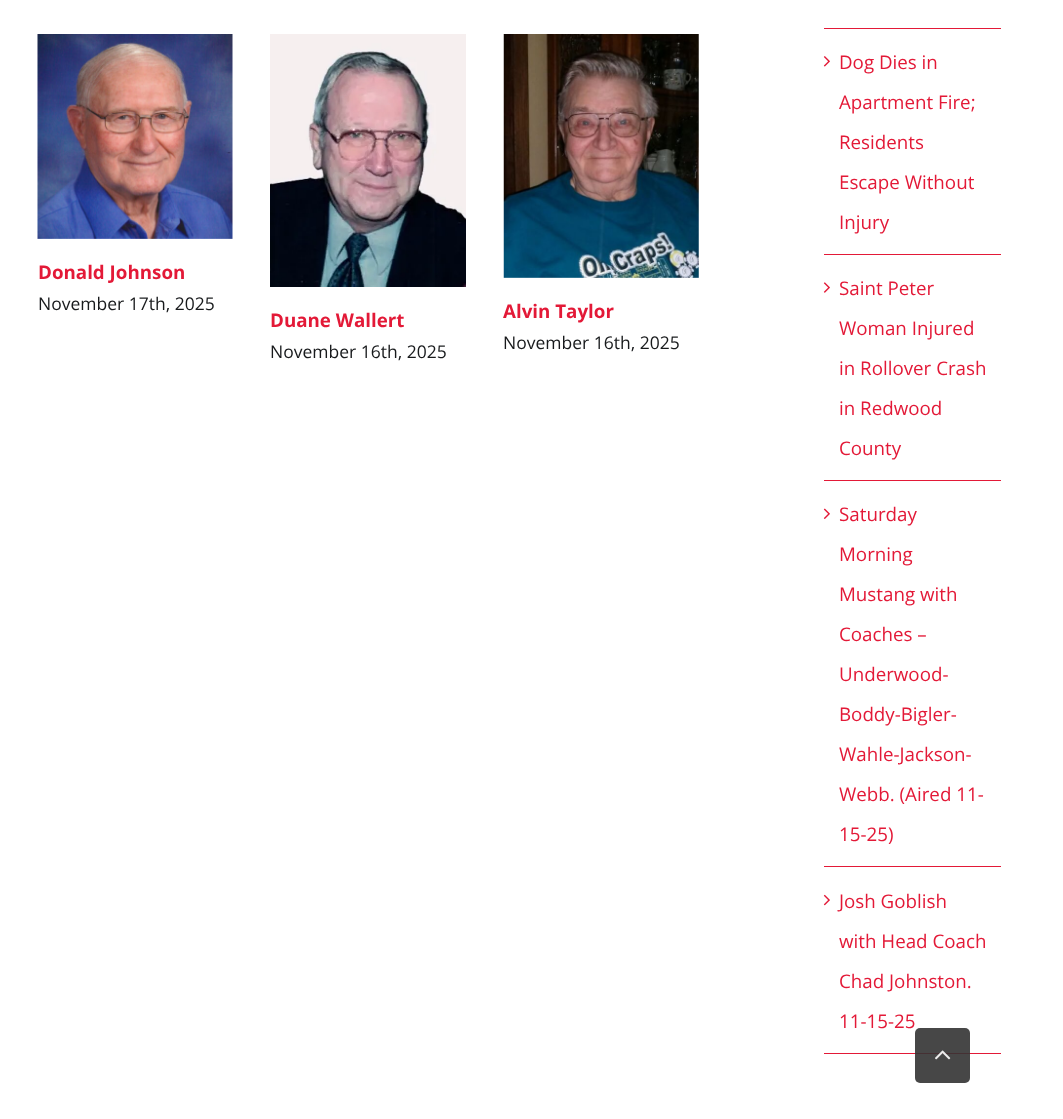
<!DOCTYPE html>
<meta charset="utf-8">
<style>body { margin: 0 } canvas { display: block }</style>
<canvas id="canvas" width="1063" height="1119"></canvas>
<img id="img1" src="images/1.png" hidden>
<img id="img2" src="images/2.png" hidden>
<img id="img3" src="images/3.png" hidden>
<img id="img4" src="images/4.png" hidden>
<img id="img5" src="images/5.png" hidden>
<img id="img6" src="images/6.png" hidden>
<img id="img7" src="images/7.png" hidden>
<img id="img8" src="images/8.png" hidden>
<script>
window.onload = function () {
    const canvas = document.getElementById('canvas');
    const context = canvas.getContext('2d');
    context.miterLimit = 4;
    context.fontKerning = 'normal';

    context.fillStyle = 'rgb(255, 255, 255)';
    context.fillRect(0, 0, 1063, 1119);
    context.drawImage(document.getElementById('img1'), 37, 34, 196, 205);
    context.drawImage(document.getElementById('img2'), 270, 34, 196, 253);
    context.drawImage(document.getElementById('img3'), 503, 34, 196, 244);
    context.fillStyle = 'rgb(227, 25, 55)';
    context.fillRect(824, 28, 177, 1);
    context.fillRect(824, 254, 177, 1);
    context.drawImage(document.getElementById('img4'), 823, 56, 7, 11);
    context.fillRect(824, 480, 177, 1);
    context.drawImage(document.getElementById('img5'), 823, 282, 7, 11);
    context.fillRect(824, 866, 177, 1);
    context.drawImage(document.getElementById('img6'), 823, 508, 7, 11);
    context.fillRect(824, 1053, 177, 1);
    context.drawImage(document.getElementById('img7'), 823, 894, 7, 12);
    context.fillStyle = 'rgba(51, 51, 51, 0.9)';
    context.beginPath();
    context.roundRect(915, 1028, 55, 55, 5);
    context.fill();
    context.drawImage(document.getElementById('img8'), 935, 1050, 16, 10);
    context.font = 'bold 18.75px Open Sans';
    context.fillStyle = 'rgb(227, 25, 55)';
    context.fillText('Donald Johnson', 38, 279);
    context.font = '17.5px Open Sans';
    context.fillStyle = 'rgb(24, 26, 28)';
    context.fillText('November 17th, 2025', 38, 310);
    context.font = 'bold 18.75px Open Sans';
    context.fillStyle = 'rgb(227, 25, 55)';
    context.fillText('Duane Wallert', 270, 327);
    context.font = '17.5px Open Sans';
    context.fillStyle = 'rgb(24, 26, 28)';
    context.fillText('November 16th, 2025', 270, 358);
    context.font = 'bold 18.75px Open Sans';
    context.fillStyle = 'rgb(227, 25, 55)';
    context.fillText('Alvin Taylor', 503, 318);
    context.font = '17.5px Open Sans';
    context.fillStyle = 'rgb(24, 26, 28)';
    context.fillText('November 16th, 2025', 503, 349);
    context.font = '18.75px Open Sans';
    context.fillStyle = 'rgb(227, 25, 55)';
    context.fillText('Dog Dies in', 839, 69);
    context.fillText('Apartment Fire;', 839, 109);
    context.fillText('Residents', 839, 149);
    context.fillText('Escape Without', 839, 189);
    context.fillText('Injury', 839, 229);
    context.fillText('Saint Peter', 839, 295);
    context.fillText('Woman Injured', 839, 335);
    context.fillText('in Rollover Crash', 839, 375);
    context.fillText('in Redwood', 839, 415);
    context.fillText('County', 839, 455);
    context.fillText('Saturday', 839, 521);
    context.fillText('Morning', 839, 561);
    context.fillText('Mustang with', 839, 601);
    context.fillText('Coaches –', 839, 641);
    context.fillText('Underwood-', 839, 681);
    context.fillText('Boddy-Bigler-', 839, 721);
    context.fillText('Wahle-Jackson-', 839, 761);
    context.fillText('Webb. (Aired 11-', 839, 801);
    context.fillText('15-25)', 839, 841);
    context.fillText('Josh Goblish', 839, 908);
    context.fillText('with Head Coach', 839, 948);
    context.fillText('Chad Johnston.', 839, 988);
    context.fillText('11-15-25', 839, 1028);
};
</script>
